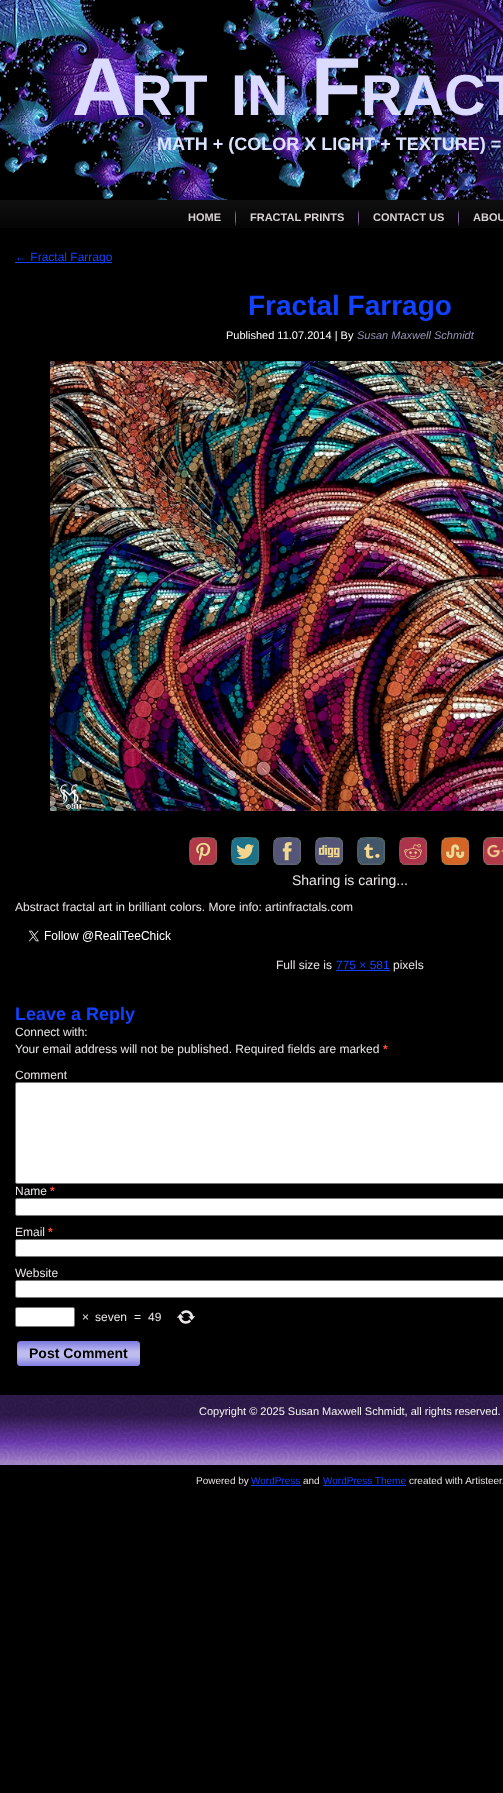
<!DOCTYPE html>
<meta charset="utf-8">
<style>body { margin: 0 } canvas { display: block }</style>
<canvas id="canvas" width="503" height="1793"></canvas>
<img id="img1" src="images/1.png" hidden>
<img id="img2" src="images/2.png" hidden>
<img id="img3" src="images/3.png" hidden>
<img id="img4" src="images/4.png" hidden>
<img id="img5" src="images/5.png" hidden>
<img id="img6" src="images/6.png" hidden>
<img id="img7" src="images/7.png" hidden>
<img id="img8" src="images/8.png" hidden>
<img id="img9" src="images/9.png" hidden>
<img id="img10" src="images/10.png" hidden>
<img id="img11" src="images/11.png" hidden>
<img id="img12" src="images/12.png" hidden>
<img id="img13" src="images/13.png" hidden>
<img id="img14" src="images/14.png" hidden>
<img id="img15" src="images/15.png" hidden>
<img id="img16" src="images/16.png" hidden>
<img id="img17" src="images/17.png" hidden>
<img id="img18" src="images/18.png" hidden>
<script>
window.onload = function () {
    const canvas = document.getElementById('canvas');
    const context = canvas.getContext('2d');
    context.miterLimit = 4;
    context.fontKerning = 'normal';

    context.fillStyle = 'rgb(0, 0, 0)';
    context.fillRect(0, 0, 503, 1793);
    context.drawImage(document.getElementById('img1'), 0, 0, 503, 200);
    context.drawImage(document.getElementById('img2'), 0, 200, 503, 28);
    context.drawImage(document.getElementById('img3'), 235, 210, 1, 16);
    context.drawImage(document.getElementById('img3'), 358, 210, 1, 16);
    context.drawImage(document.getElementById('img3'), 458, 210, 1, 16);
    context.fillStyle = 'rgb(18, 65, 255)';
    context.fillRect(15, 262, 97, 1);
    context.drawImage(document.getElementById('img4'), 50, 361, 453, 450);
    context.drawImage(document.getElementById('img5'), 189, 837, 28, 28);
    context.drawImage(document.getElementById('img6'), 231, 837, 28, 28);
    context.drawImage(document.getElementById('img7'), 273, 837, 28, 28);
    context.drawImage(document.getElementById('img8'), 315, 837, 28, 28);
    context.drawImage(document.getElementById('img9'), 357, 837, 28, 28);
    context.drawImage(document.getElementById('img10'), 399, 837, 28, 28);
    context.drawImage(document.getElementById('img11'), 441, 837, 28, 28);
    context.drawImage(document.getElementById('img12'), 483, 837, 20, 28);
    context.drawImage(document.getElementById('img13'), 28, 930, 143, 12);
    context.fillRect(336, 970, 54, 1);
    context.fillStyle = 'rgb(255, 255, 255)';
    context.beginPath();
    context.roundRect(15.5, 1082.5, 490, 101, 1.5);
    context.fill();
    context.strokeStyle = 'rgb(118, 118, 118)';
    context.stroke();
    context.beginPath();
    context.roundRect(15.5, 1198.5, 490, 17, 1.5);
    context.fill();
    context.stroke();
    context.beginPath();
    context.roundRect(15.5, 1239.5, 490, 17, 1.5);
    context.fill();
    context.stroke();
    context.beginPath();
    context.roundRect(15.5, 1280.5, 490, 17, 1.5);
    context.fill();
    context.stroke();
    context.beginPath();
    context.roundRect(15.5, 1307.5, 59, 19, 1.5);
    context.fill();
    context.stroke();
    context.drawImage(document.getElementById('img14'), 176, 1310, 20, 14);
    context.drawImage(document.getElementById('img15'), 17, 1341, 118, 25);
    context.drawImage(document.getElementById('img16'), 135, 1341, 5, 25);
    context.drawImage(document.getElementById('img17'), 0, 1395, 503, 20);
    context.drawImage(document.getElementById('img18'), 0, 1415, 503, 50);
    context.fillStyle = 'rgb(18, 65, 255)';
    context.fillRect(251, 1485, 50, 1);
    context.fillRect(323, 1485, 83, 1);
    context.font = 'bold 82px Liberation Sans';
    context.fillStyle = 'rgb(219, 219, 255)';
    context.fillText('A', 72, 115);
    context.font = 'bold 57.5px Liberation Sans';
    context.fillText('RT', 131, 115);
    context.fillText('IN', 231, 115);
    context.font = 'bold 82px Liberation Sans';
    context.fillText('F', 311, 115);
    context.font = 'bold 57.5px Liberation Sans';
    context.fillText('RACT', 361, 115);
    context.font = 'bold 18px Liberation Sans';
    context.fillStyle = 'rgb(219, 228, 255)';
    context.fillText('MATH + (COLOR X LIGHT + TEXTURE) =', 157, 150);
    context.font = 'bold 11px Liberation Sans';
    context.fillStyle = 'rgb(215, 209, 212)';
    context.fillText('HOME', 188, 221);
    context.fillText('FRACTAL PRINTS', 250, 221);
    context.fillText('CONTACT US', 373, 221);
    context.fillText('ABOU', 473, 221);
    context.font = '12px Liberation Sans';
    context.fillStyle = 'rgb(18, 65, 255)';
    context.fillText('← Fractal Farrago', 15, 261);
    context.font = 'bold 28px Liberation Sans';
    context.fillText('Fractal Farrago', 248, 315);
    context.font = '11px Liberation Sans';
    context.fillStyle = 'rgb(255, 255, 255)';
    context.fillText('Published 11.07.2014 | By', 226, 339);
    context.font = 'italic 11px Liberation Sans';
    context.fillStyle = 'rgb(149, 151, 183)';
    context.fillText('Susan Maxwell Schmidt', 357, 339);
    context.font = '14px Liberation Sans';
    context.fillStyle = 'rgb(234, 230, 232)';
    context.fillText('Sharing is caring...', 292, 885);
    context.font = '12px Liberation Sans';
    context.fillText('Abstract fractal art in brilliant colors. More info: artinfractals.com', 15, 911);
    context.fillText('Full size is', 276, 969);
    context.fillStyle = 'rgb(18, 65, 255)';
    context.fillText('775 × 581', 336, 969);
    context.fillStyle = 'rgb(234, 230, 232)';
    context.fillText('pixels', 393, 969);
    context.font = 'bold 18px Liberation Sans';
    context.fillStyle = 'rgb(18, 65, 255)';
    context.fillText('Leave a Reply', 15, 1020);
    context.font = '12px Liberation Sans';
    context.fillStyle = 'rgb(234, 230, 232)';
    context.fillText('Connect with:', 15, 1036);
    context.fillText('Your email address will not be published. Required fields are marked', 15, 1053);
    context.font = 'bold 12px Liberation Sans';
    context.fillStyle = 'rgb(255, 75, 51)';
    context.fillText('*', 383, 1053);
    context.font = '12px Liberation Sans';
    context.fillStyle = 'rgb(234, 230, 232)';
    context.fillText('Comment', 15, 1079);
    context.fillText('Name', 15, 1195);
    context.font = 'bold 12px Liberation Sans';
    context.fillStyle = 'rgb(255, 75, 51)';
    context.fillText('*', 50, 1195);
    context.font = '12px Liberation Sans';
    context.fillStyle = 'rgb(234, 230, 232)';
    context.fillText('Email', 15, 1236);
    context.font = 'bold 12px Liberation Sans';
    context.fillStyle = 'rgb(255, 75, 51)';
    context.fillText('*', 48, 1236);
    context.font = '12px Liberation Sans';
    context.fillStyle = 'rgb(234, 230, 232)';
    context.fillText('Website', 15, 1277);
    context.fillText('×', 82, 1321);
    context.fillText('seven', 95, 1321);
    context.fillText('=', 134, 1321);
    context.fillText('49', 148, 1321);
    context.font = 'bold 14px Liberation Sans';
    context.fillStyle = 'rgb(0, 0, 0)';
    context.fillText('Post Comment', 29, 1358);
    context.font = '11px Liberation Sans';
    context.fillStyle = 'rgb(246, 244, 245)';
    context.fillText('Copyright © 2025 Susan Maxwell Schmidt, all rights reserved.', 199, 1415);
    context.font = '10px Liberation Sans';
    context.fillStyle = 'rgb(227, 222, 225)';
    context.fillText('Powered by', 196, 1484);
    context.fillStyle = 'rgb(18, 65, 255)';
    context.fillText('WordPress', 251, 1484);
    context.fillStyle = 'rgb(227, 222, 225)';
    context.fillText('and', 303, 1484);
    context.fillStyle = 'rgb(18, 65, 255)';
    context.fillText('WordPress Theme', 323, 1484);
    context.fillStyle = 'rgb(227, 222, 225)';
    context.fillText('created with Artisteer.', 409, 1484);
};
</script>
